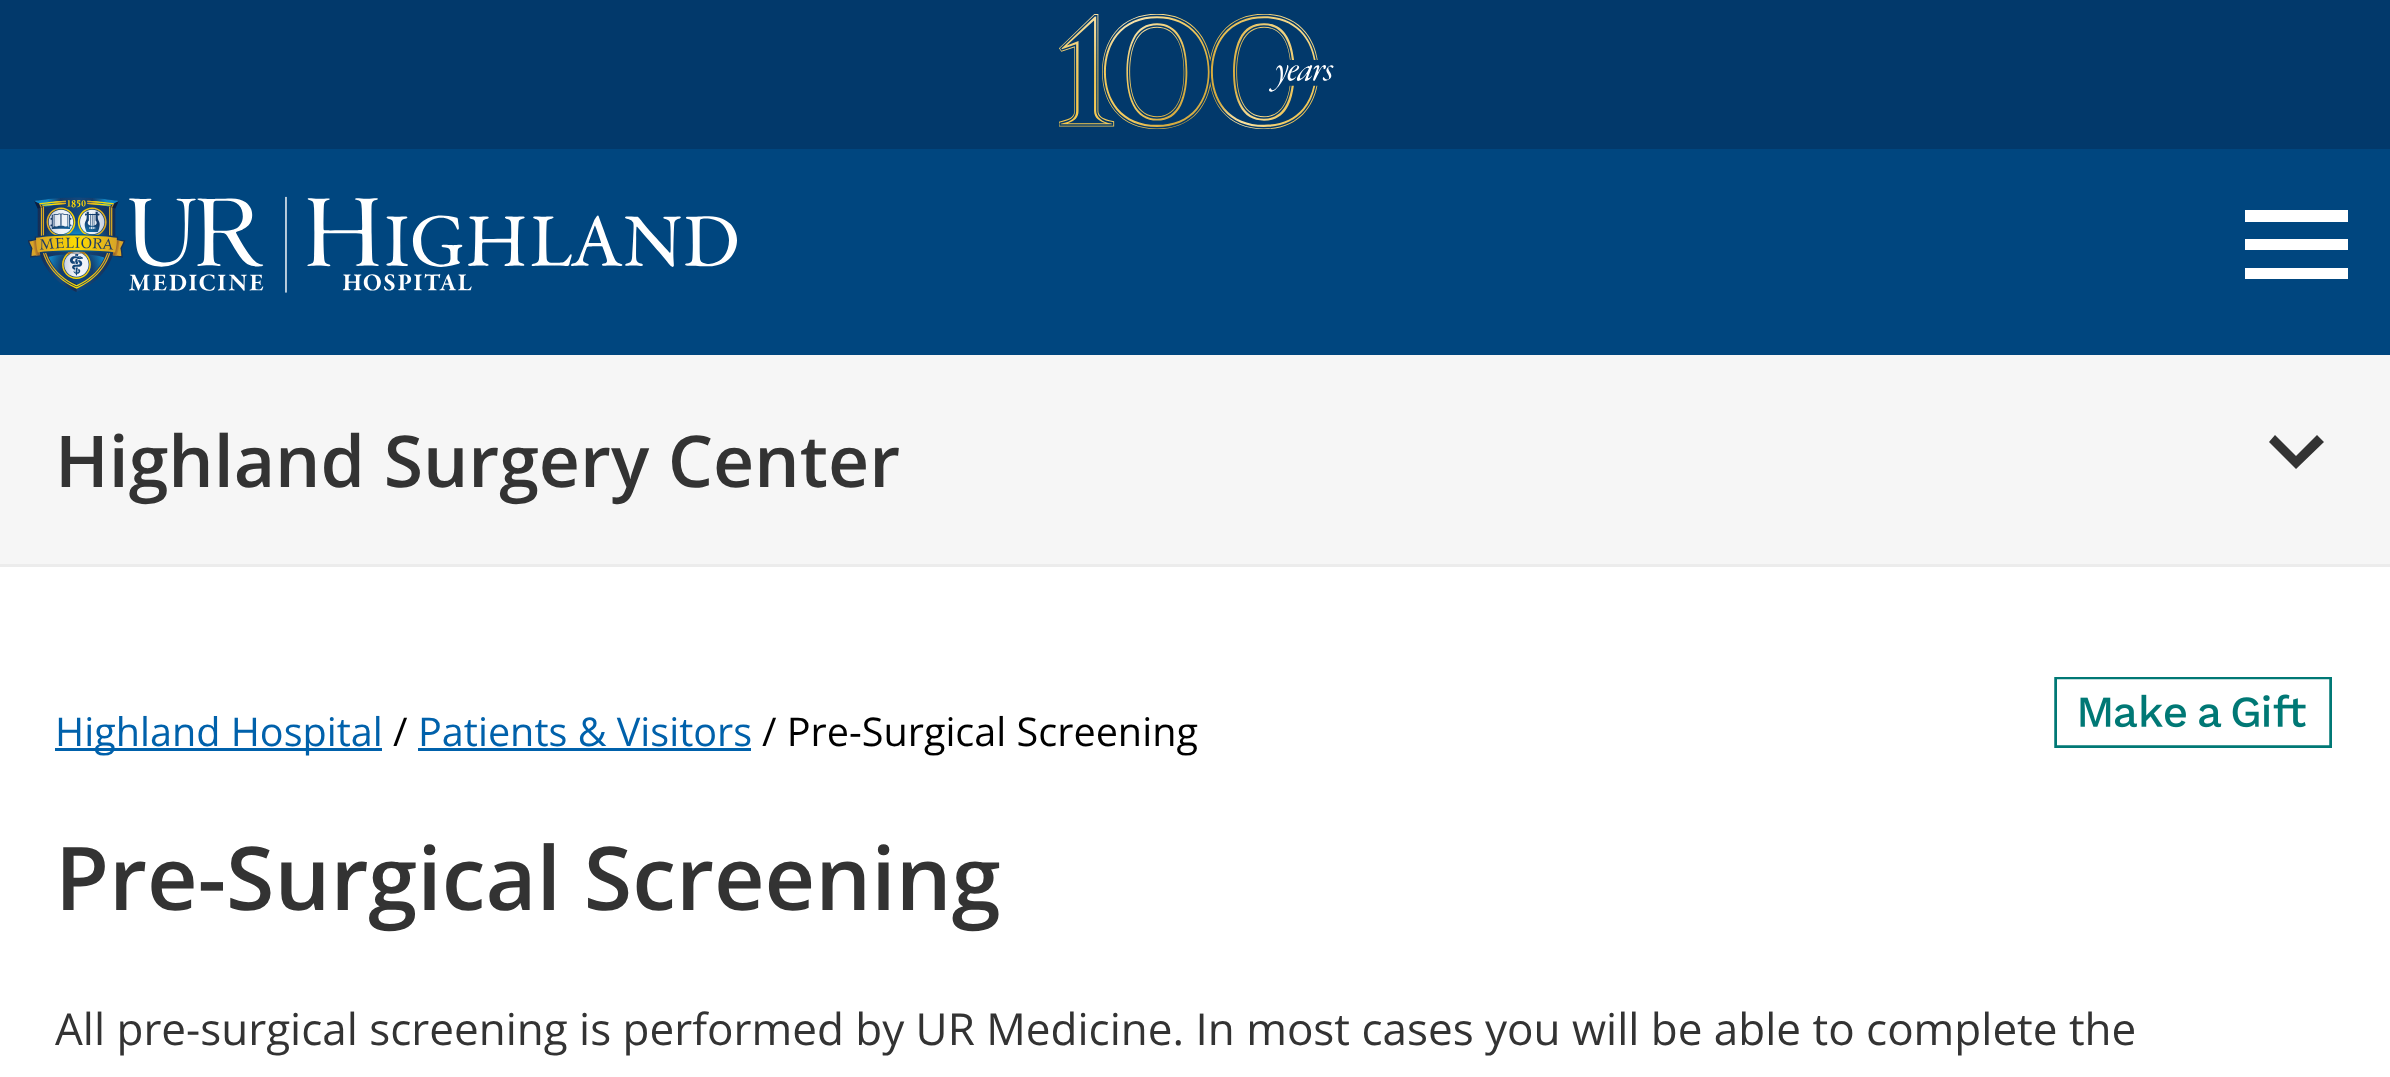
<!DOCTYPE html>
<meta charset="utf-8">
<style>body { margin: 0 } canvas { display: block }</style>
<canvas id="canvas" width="2390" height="1077"></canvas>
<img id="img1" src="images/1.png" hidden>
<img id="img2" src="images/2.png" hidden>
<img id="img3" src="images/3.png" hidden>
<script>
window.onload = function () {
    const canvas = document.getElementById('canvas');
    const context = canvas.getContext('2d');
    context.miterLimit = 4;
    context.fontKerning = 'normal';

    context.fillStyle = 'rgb(0, 70, 127)';
    context.fillRect(0, 0, 2390, 1077);
    context.fillStyle = 'rgb(2, 57, 107)';
    context.fillRect(0, 0, 2390, 149);
    context.drawImage(document.getElementById('img1'), 1059, 14, 275, 116);
    context.drawImage(document.getElementById('img2'), 28, 196, 709, 97);
    context.fillStyle = 'rgb(255, 255, 255)';
    context.beginPath();
    context.moveTo(2245, 210);
    context.lineTo(2348, 210);
    context.lineTo(2348, 222);
    context.lineTo(2245, 222);
    context.closePath();
    context.moveTo(2245, 250);
    context.lineTo(2245, 239);
    context.lineTo(2348, 239);
    context.lineTo(2348, 250);
    context.closePath();
    context.moveTo(2245, 279);
    context.lineTo(2245, 268);
    context.lineTo(2348, 268);
    context.lineTo(2348, 279);
    context.closePath();
    context.fill();
    context.fillRect(0, 567, 2390, 510);
    context.fillStyle = 'rgb(246, 246, 246)';
    context.fillRect(0, 355, 2390, 209);
    context.fillStyle = 'rgb(51, 51, 51)';
    context.beginPath();
    context.moveTo(2275, 435);
    context.lineTo(2296, 456);
    context.lineTo(2317, 435);
    context.lineTo(2324, 442);
    context.lineTo(2296, 469);
    context.lineTo(2269, 442);
    context.closePath();
    context.fill();
    context.fillStyle = 'rgb(236, 236, 236)';
    context.fillRect(0, 564, 2390, 3);
    context.fillStyle = 'rgb(0, 97, 171)';
    context.fillRect(55, 748, 327, 3);
    context.fillRect(418, 748, 333, 3);
    context.drawImage(document.getElementById('img3'), 2054, 677, 278, 71);
    context.font = '600 71.5px Open Sans';
    context.fillStyle = 'rgb(51, 51, 51)';
    context.fillText('Highland Surgery Center', 55, 487);
    context.font = '39.6px Open Sans';
    context.fillStyle = 'rgb(0, 97, 171)';
    context.fillText('Highland Hospital', 55, 746);
    context.fillStyle = 'rgb(0, 0, 0)';
    context.fillText('/', 393, 746);
    context.fillStyle = 'rgb(0, 97, 171)';
    context.fillText('Patients & Visitors', 418, 746);
    context.fillStyle = 'rgb(0, 0, 0)';
    context.fillText('/ Pre-Surgical Screening', 762, 746);
    context.font = '600 88px Open Sans';
    context.fillStyle = 'rgb(51, 51, 51)';
    context.fillText('Pre-Surgical Screening', 55, 910);
    context.font = '44px Open Sans';
    context.fillText('All pre-surgical screening is performed by UR Medicine. In most cases you will be able to complete the', 55, 1045);
};
</script>
